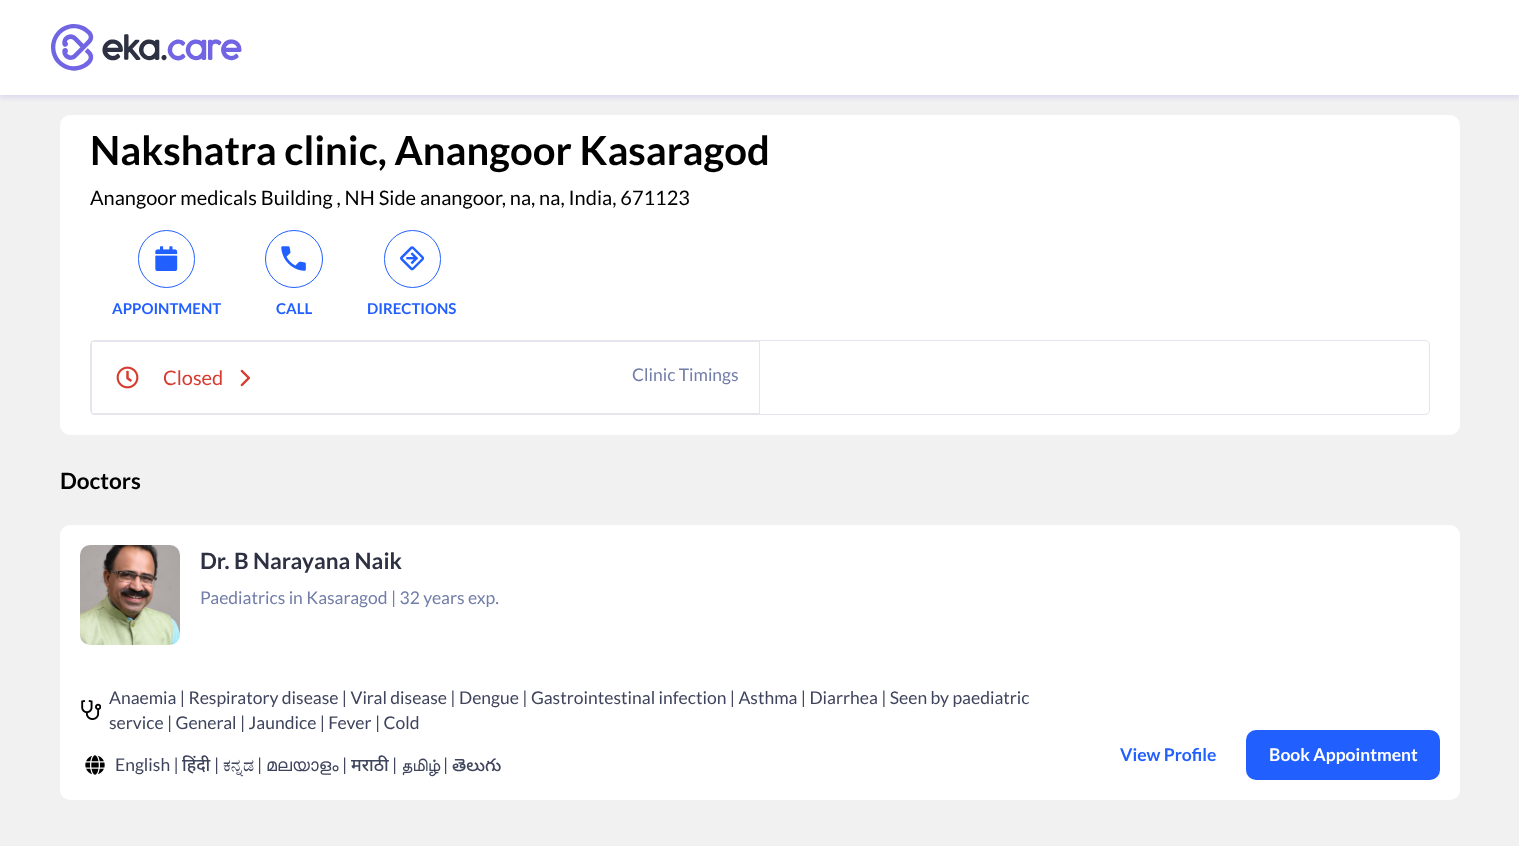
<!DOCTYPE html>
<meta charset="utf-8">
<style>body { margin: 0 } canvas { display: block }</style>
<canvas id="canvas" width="1519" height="846"></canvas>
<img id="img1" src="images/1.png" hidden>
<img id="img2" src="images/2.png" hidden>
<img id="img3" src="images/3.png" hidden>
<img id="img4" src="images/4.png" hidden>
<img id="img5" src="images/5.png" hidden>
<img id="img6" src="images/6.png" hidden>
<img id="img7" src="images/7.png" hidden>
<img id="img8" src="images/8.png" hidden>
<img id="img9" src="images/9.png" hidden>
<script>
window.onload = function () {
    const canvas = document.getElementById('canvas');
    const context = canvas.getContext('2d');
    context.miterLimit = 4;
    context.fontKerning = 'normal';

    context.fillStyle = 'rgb(241, 241, 241)';
    context.fillRect(0, 0, 1519, 846);
    context.fillStyle = 'rgba(114, 101, 227, 0.16)';
    context.filter = 'blur(2.5px)';
    context.beginPath();
    context.rect(0, 3, 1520, 95);
    context.fill();
    context.filter = 'none';
    context.fillStyle = 'rgb(255, 255, 255)';
    context.fillRect(0, 0, 1519, 95);
    context.drawImage(document.getElementById('img1'), 51, 24, 191, 47);
    context.beginPath();
    context.roundRect(60, 115, 1400, 320, 10);
    context.fill();
    context.beginPath();
    context.roundRect(138.5, 230.5, 56, 57, 28);
    context.strokeStyle = 'rgb(33, 95, 255)';
    context.stroke();
    context.drawImage(document.getElementById('img2'), 155, 246, 23, 25);
    context.beginPath();
    context.arc(294, 259, 28.5, 0, 2 * Math.PI);
    context.stroke();
    context.drawImage(document.getElementById('img3'), 281, 246, 25, 25);
    context.beginPath();
    context.roundRect(384.5, 230.5, 56, 57, 28);
    context.stroke();
    context.drawImage(document.getElementById('img4'), 400, 246, 25, 25);
    context.beginPath();
    context.roundRect(90.5, 340.5, 1339, 74, 4.5);
    context.strokeStyle = 'rgb(228, 229, 237)';
    context.stroke();
    context.strokeRect(91.5, 341.5, 668, 72);
    context.drawImage(document.getElementById('img5'), 116, 366, 23, 23);
    context.drawImage(document.getElementById('img6'), 240, 369, 10, 18);
    context.beginPath();
    context.roundRect(60, 525, 1400, 275, 10);
    context.fill();
    context.drawImage(document.getElementById('img7'), 80, 545, 100, 100);
    context.drawImage(document.getElementById('img8'), 81, 700, 20, 20);
    context.drawImage(document.getElementById('img9'), 85, 755, 20, 20);
    context.fillStyle = 'rgb(33, 95, 255)';
    context.beginPath();
    context.roundRect(1246, 730, 194, 50, 10);
    context.fill();
    context.font = 'bold 40px Lato';
    context.fillStyle = 'rgb(0, 0, 0)';
    context.fillText('Nakshatra clinic, Anangoor Kasaragod', 90, 165);
    context.font = '20px Lato';
    context.fillText('Anangoor medicals Building , NH Side anangoor, na, na, India, 671123', 90, 205);
    context.font = 'bold 15px Lato';
    context.fillStyle = 'rgb(33, 95, 255)';
    context.fillText('APPOINTMENT', 112, 314);
    context.fillText('CALL', 276, 314);
    context.fillText('DIRECTIONS', 367, 314);
    context.font = '20px Lato';
    context.fillStyle = 'rgb(215, 58, 47)';
    context.fillText('Closed', 163, 385);
    context.font = '17.5px Lato';
    context.fillStyle = 'rgb(114, 125, 168)';
    context.fillText('Clinic Timings', 632, 381);
    context.font = 'bold 22.5px Lato';
    context.fillStyle = 'rgb(0, 0, 0)';
    context.fillText('Doctors', 60, 489);
    context.fillStyle = 'rgb(45, 49, 66)';
    context.fillText('Dr. B Narayana Naik', 200, 569);
    context.font = '17.5px Lato';
    context.fillStyle = 'rgb(114, 125, 168)';
    context.fillText('Paediatrics in Kasaragod | 32 years exp.', 200, 604);
    context.fillStyle = 'rgb(62, 68, 92)';
    context.fillText('Anaemia | Respiratory disease | Viral disease | Dengue | Gastrointestinal infection | Asthma | Diarrhea | Seen by paediatric', 109, 704);
    context.fillText('service | General | Jaundice | Fever | Cold', 109, 729);
    context.fillText('English |', 115, 771);
    context.font = '500 17.5px Noto Sans';
    context.fillText('हिंदी', 182, 771);
    context.font = '17.5px Lato';
    context.fillText('|', 214, 771);
    context.font = '17.5px FreeSerif';
    context.fillText('ಕನ್ನಡ', 223, 771);
    context.font = '17.5px Lato';
    context.fillText('|', 257, 771);
    context.font = '17.5px FreeSans';
    context.fillText('മലയാളം', 266, 771);
    context.font = '17.5px Lato';
    context.fillText('|', 342, 771);
    context.font = '500 17.5px Noto Sans';
    context.fillText('मराठी', 351, 771);
    context.font = '17.5px Lato';
    context.fillText('|', 392, 771);
    context.font = '17.5px FreeSans';
    context.fillText('தமிழ்', 401, 771);
    context.font = '17.5px Lato';
    context.fillText('|', 443, 771);
    context.font = '500 17.5px Noto Sans Telugu';
    context.fillText('తెలుగు', 452, 771);
    context.font = 'bold 17.5px Lato';
    context.fillStyle = 'rgb(33, 95, 255)';
    context.fillText('View Profile', 1120, 761);
    context.fillStyle = 'rgb(255, 255, 255)';
    context.fillText('Book Appointment', 1269, 761);
};
</script>
